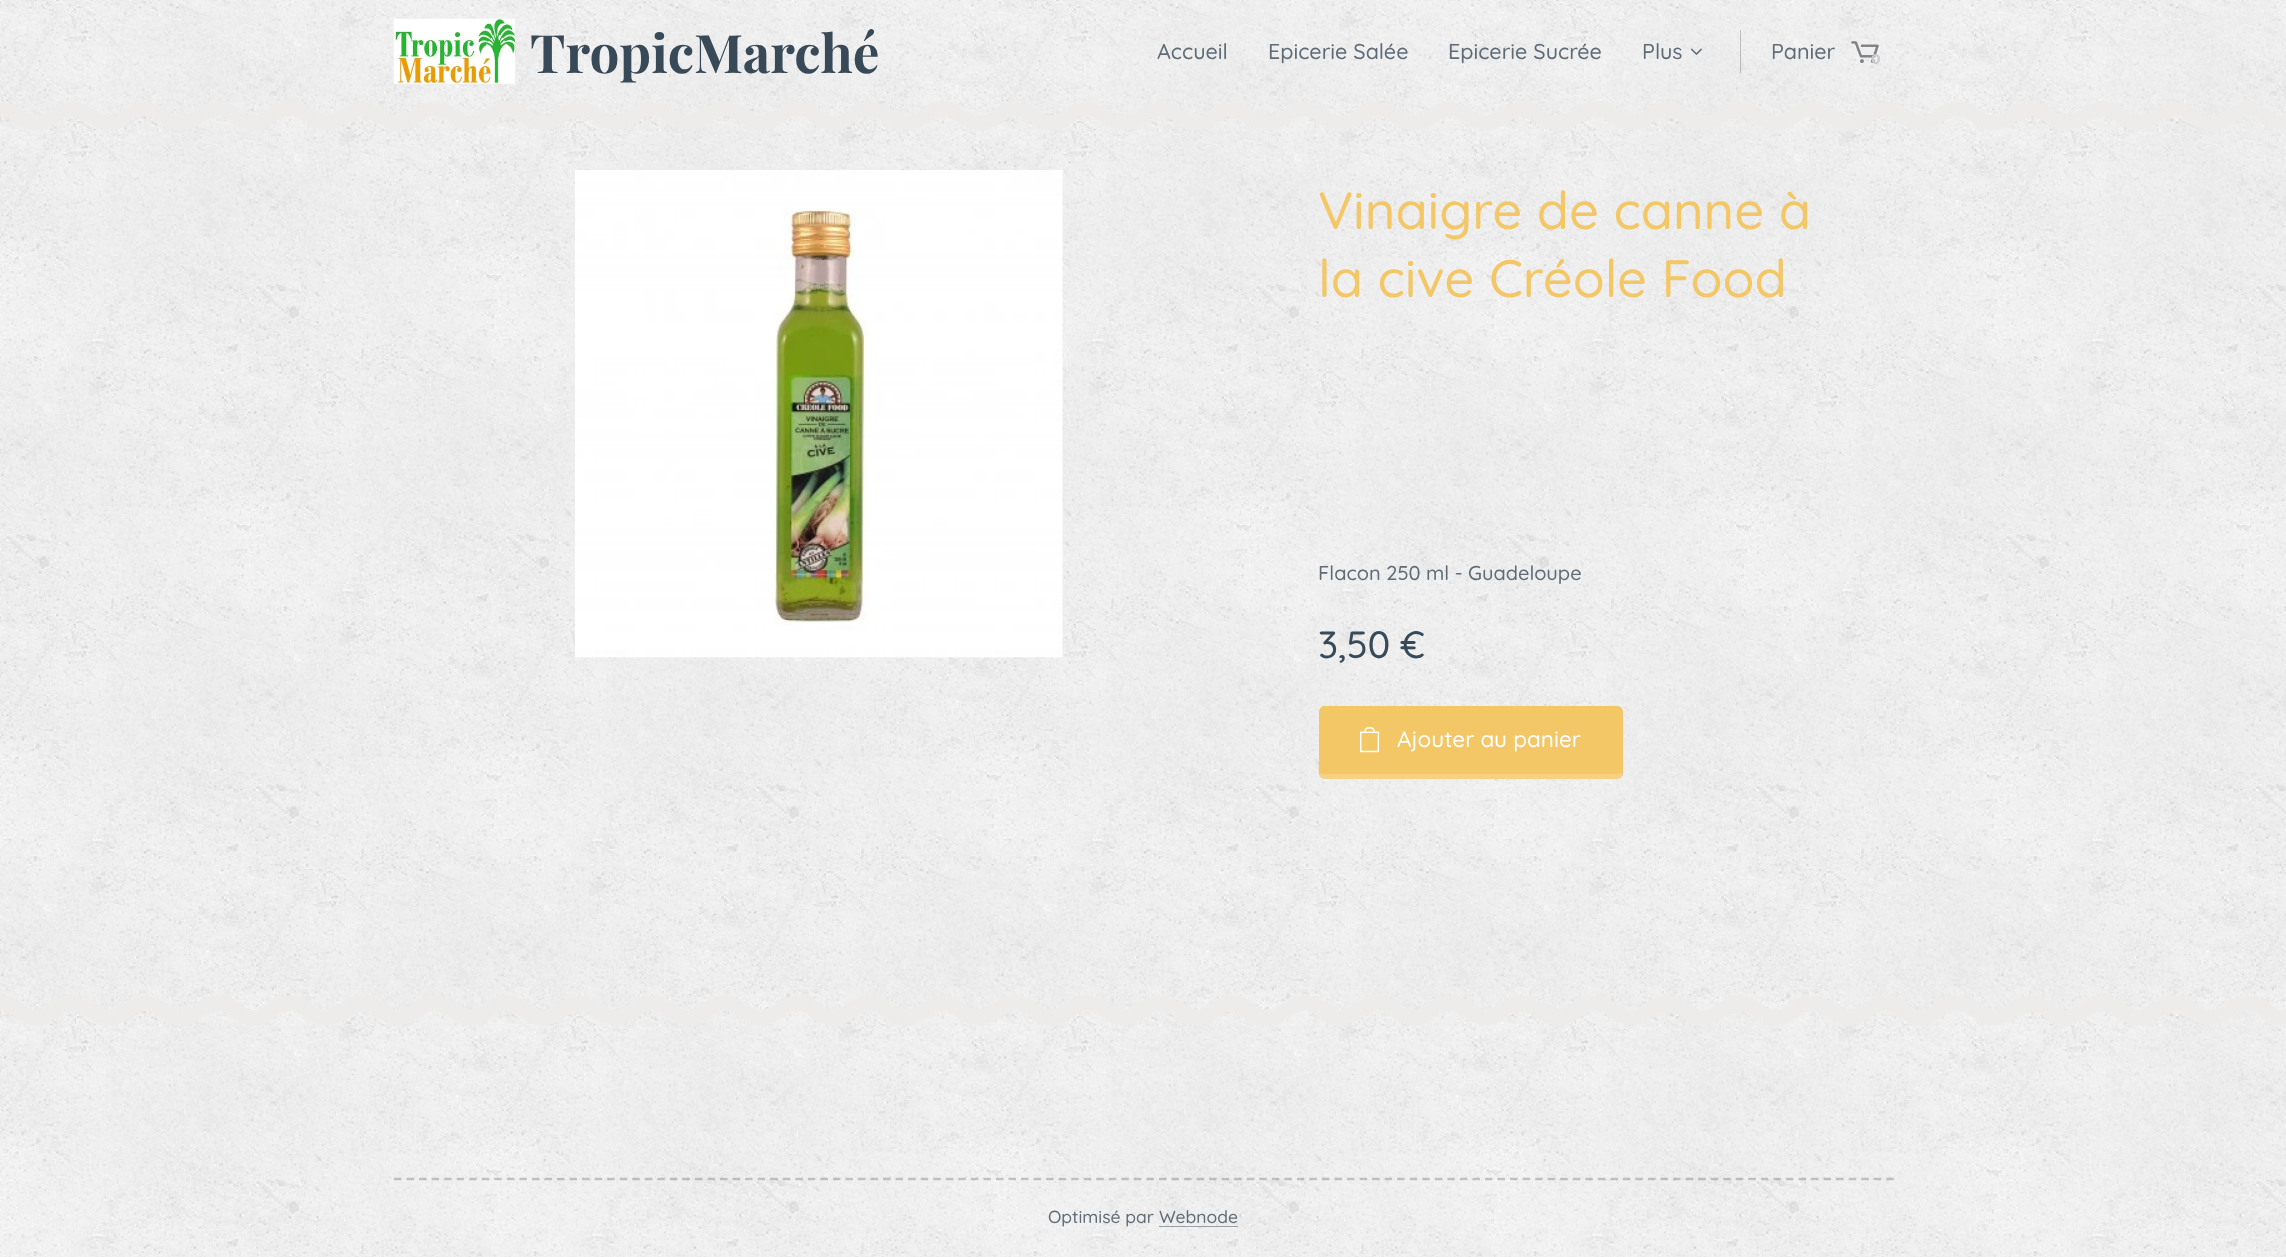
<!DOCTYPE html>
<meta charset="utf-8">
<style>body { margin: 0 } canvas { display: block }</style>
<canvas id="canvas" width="2286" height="1257"></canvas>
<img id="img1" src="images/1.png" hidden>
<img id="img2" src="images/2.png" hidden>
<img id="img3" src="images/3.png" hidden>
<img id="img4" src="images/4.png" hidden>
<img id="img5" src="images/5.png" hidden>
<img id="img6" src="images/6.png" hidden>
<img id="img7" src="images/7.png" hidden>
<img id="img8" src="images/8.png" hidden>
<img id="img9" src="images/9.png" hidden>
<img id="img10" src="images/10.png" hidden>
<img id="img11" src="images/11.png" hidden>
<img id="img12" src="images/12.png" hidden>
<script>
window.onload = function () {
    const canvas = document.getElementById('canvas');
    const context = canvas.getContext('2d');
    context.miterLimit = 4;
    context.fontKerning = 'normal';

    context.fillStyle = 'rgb(255, 255, 255)';
    context.fillRect(0, 0, 2286, 1257);
    context.drawImage(document.getElementById('img1'), 0, 0, 2286, 115);
    context.drawImage(document.getElementById('img2'), 393, 18, 122, 66);
    context.drawImage(document.getElementById('img3'), 1690, 48, 12, 7);
    context.fillStyle = 'rgba(0, 0, 0, 0.2)';
    context.fillRect(1740, 30, 1, 43);
    context.drawImage(document.getElementById('img4'), 1851, 41, 28, 22);
    context.drawImage(document.getElementById('img5'), 1, 101, 2273, 14);
    context.drawImage(document.getElementById('img6'), 0, 115, 2286, 895);
    context.drawImage(document.getElementById('img7'), 0, 115, 2286, 16);
    context.drawImage(document.getElementById('img8'), 575, 170, 488, 488);
    context.fillStyle = 'rgb(243, 198, 102)';
    context.beginPath();
    context.roundRect(1319, 706, 304, 73, 6);
    context.fill();
    context.beginPath();
    context.moveTo(1325, 708);
    context.lineTo(1322, 709);
    context.lineTo(1321, 708);
    context.lineTo(1323, 706);
    context.lineTo(1618, 706);
    context.bezierCurveTo(1619, 707, 1620, 707, 1621, 708);
    context.lineTo(1620, 709);
    context.lineTo(1616, 708);
    context.closePath();
    context.fill();
    context.beginPath();
    context.moveTo(1621, 708);
    context.lineTo(1622, 711);
    context.lineTo(1622, 762);
    context.lineTo(1622, 775);
    context.lineTo(1621, 772);
    context.lineTo(1621, 712);
    context.lineTo(1620, 709);
    context.closePath();
    context.fill();
    context.fillStyle = 'rgba(255, 255, 255, 0.2)';
    context.beginPath();
    context.moveTo(1323, 779);
    context.bezierCurveTo(1322, 778, 1320, 777, 1320, 775);
    context.lineTo(1320, 773);
    context.bezierCurveTo(1321, 773, 1323, 774, 1325, 774);
    context.lineTo(1616, 774);
    context.bezierCurveTo(1619, 774, 1620, 773, 1621, 772);
    context.lineTo(1622, 775);
    context.bezierCurveTo(1621, 777, 1620, 778, 1618, 779);
    context.closePath();
    context.fill();
    context.fillStyle = 'rgb(243, 198, 102)';
    context.beginPath();
    context.moveTo(1320, 775);
    context.bezierCurveTo(1318, 771, 1319, 764, 1319, 762);
    context.lineTo(1319, 711);
    context.lineTo(1321, 708);
    context.lineTo(1322, 709);
    context.lineTo(1320, 712);
    context.lineTo(1320, 773);
    context.closePath();
    context.fill();
    context.drawImage(document.getElementById('img9'), 1360, 727, 20, 26);
    context.drawImage(document.getElementById('img10'), 0, 995, 2278, 15);
    context.drawImage(document.getElementById('img11'), 0, 1010, 2286, 247);
    context.drawImage(document.getElementById('img12'), 0, 1010, 2286, 16);
    context.beginPath();
    context.moveTo(394, 1179);
    context.lineTo(1894, 1179);
    context.strokeStyle = 'rgba(0, 0, 0, 0.2)';
    context.lineWidth = 2.5;
    context.setLineDash([7.5, 5.04]);
    context.stroke();
    context.fillStyle = 'rgba(47, 64, 79, 0.45)';
    context.fillRect(1159, 1226, 79, 1);
    context.font = 'bold 53px Playfair Display';
    context.fillStyle = 'rgb(56, 73, 87)';
    context.fillText('TropicMarché', 530, 73);
    context.font = '500 21.5px Quicksand';
    context.fillStyle = 'rgb(95, 108, 119)';
    context.fillText('Accueil', 1157, 59);
    context.fillText('Epicerie Salée', 1268, 59);
    context.fillText('Epicerie Sucrée', 1448, 59);
    context.fillText('Plus', 1642, 59);
    context.fillText('Panier', 1771, 59);
    context.font = 'bold 14px Montserrat';
    context.fillStyle = 'rgb(202, 203, 204)';
    context.fillText('0', 1871, 64);
    context.font = '500 52.5px Quicksand';
    context.fillStyle = 'rgb(243, 198, 102)';
    context.fillText('Vinaigre de canne à', 1318, 229);
    context.fillText('la cive Créole Food', 1318, 297);
    context.font = '500 20px Quicksand';
    context.fillStyle = 'rgb(95, 108, 119)';
    context.fillText('Flacon 250 ml - Guadeloupe', 1318, 580);
    context.font = '500 38px Quicksand';
    context.fillStyle = 'rgb(56, 73, 87)';
    context.fillText('3,50', 1318, 658);
    context.fillText('€', 1400, 658);
    context.font = '500 22.5px Quicksand';
    context.fillStyle = 'rgb(255, 255, 255)';
    context.fillText('Ajouter au panier', 1397, 747);
    context.font = '500 17.5px Quicksand';
    context.fillStyle = 'rgb(95, 108, 119)';
    context.fillText('Optimisé par', 1048, 1223);
    context.fillText('Webnode', 1159, 1223);
};
</script>
